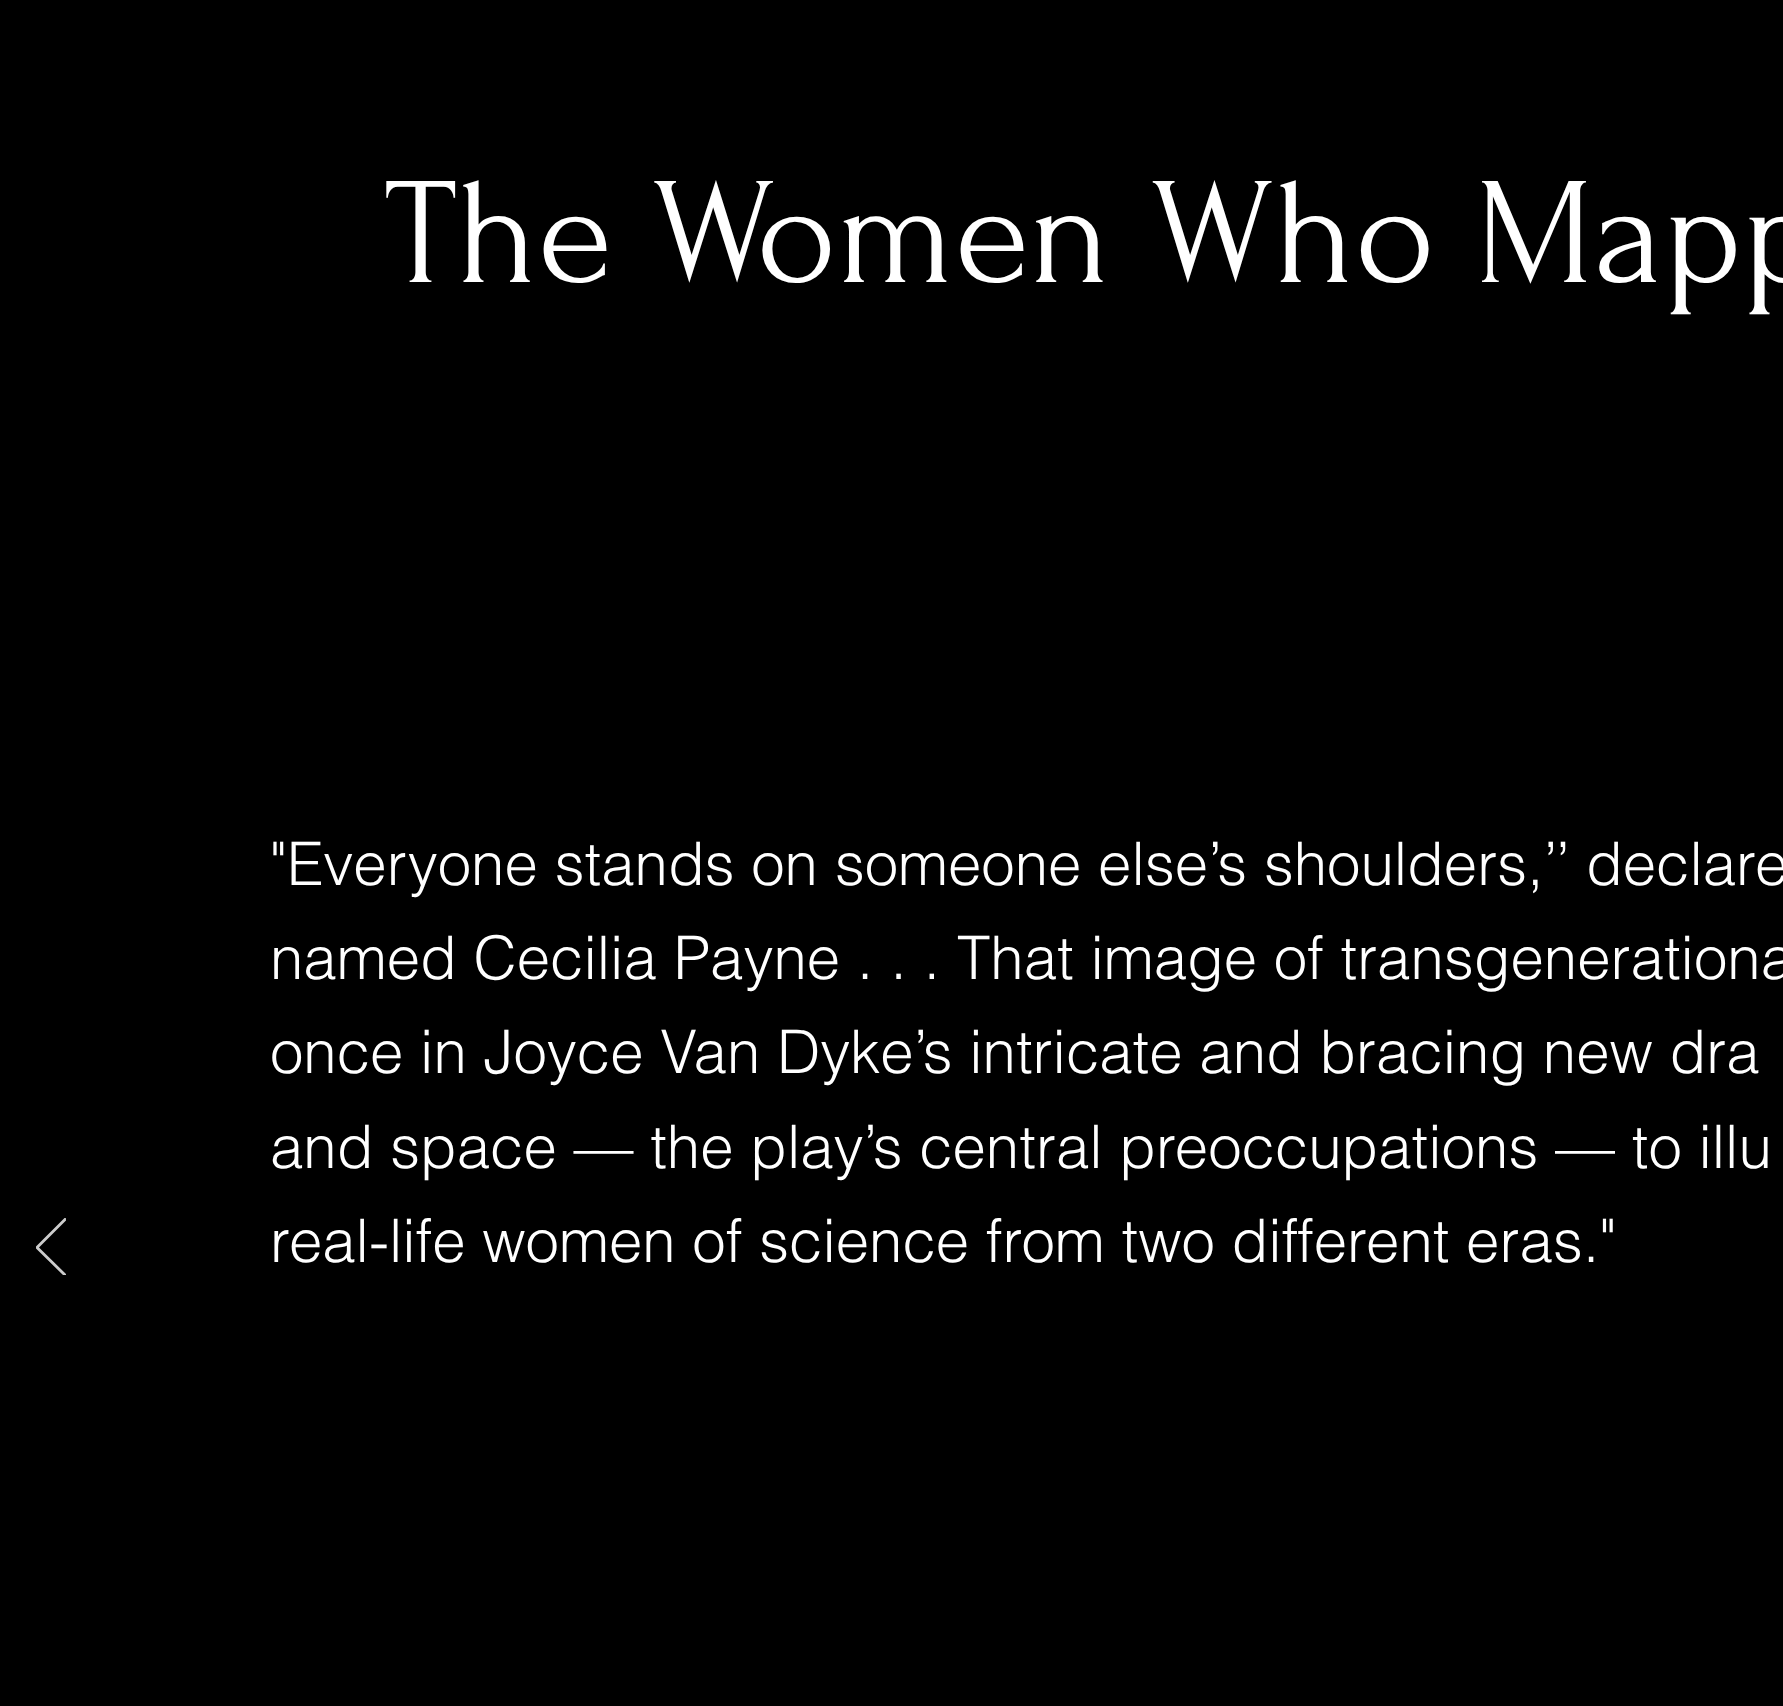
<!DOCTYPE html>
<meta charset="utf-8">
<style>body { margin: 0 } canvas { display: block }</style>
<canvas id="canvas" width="1783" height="1706"></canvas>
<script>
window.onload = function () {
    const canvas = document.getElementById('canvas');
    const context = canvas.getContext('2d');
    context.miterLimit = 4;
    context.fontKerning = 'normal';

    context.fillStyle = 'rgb(0, 0, 0)';
    context.fillRect(0, 0, 1783, 1706);
    context.save();
    context.beginPath();
    context.rect(36, 1218, 30, 57);
    context.clip();
    context.beginPath();
    context.moveTo(65, 1276);
    context.lineTo(36, 1247.5);
    context.lineTo(65, 1218.5);
    context.lineTo(66, 1219.5);
    context.lineTo(38, 1247.5);
    context.lineTo(66, 1275);
    context.closePath();
    context.strokeStyle = 'rgb(204, 204, 204)';
    context.lineWidth = 1.4;
    context.stroke();
    context.restore();
    context.font = '153px Forum';
    context.fillStyle = 'rgb(255, 255, 255)';
    context.fillText('The Women Who Mapp', 385, 282);
    context.font = '300 60px helvetica';
    context.fillText('"Everyone stands on someone else’s shoulders,’’ declare', 270, 885);
    context.fillText('named Cecilia Payne . . . That image of transgenerationa', 270, 979);
    context.fillText('once in Joyce Van Dyke’s intricate and bracing new dra', 270, 1073);
    context.fillText('and space — the play’s central preoccupations — to illu', 270, 1168);
    context.fillText('real-life women of science from two different eras."', 270, 1262);
};
</script>
